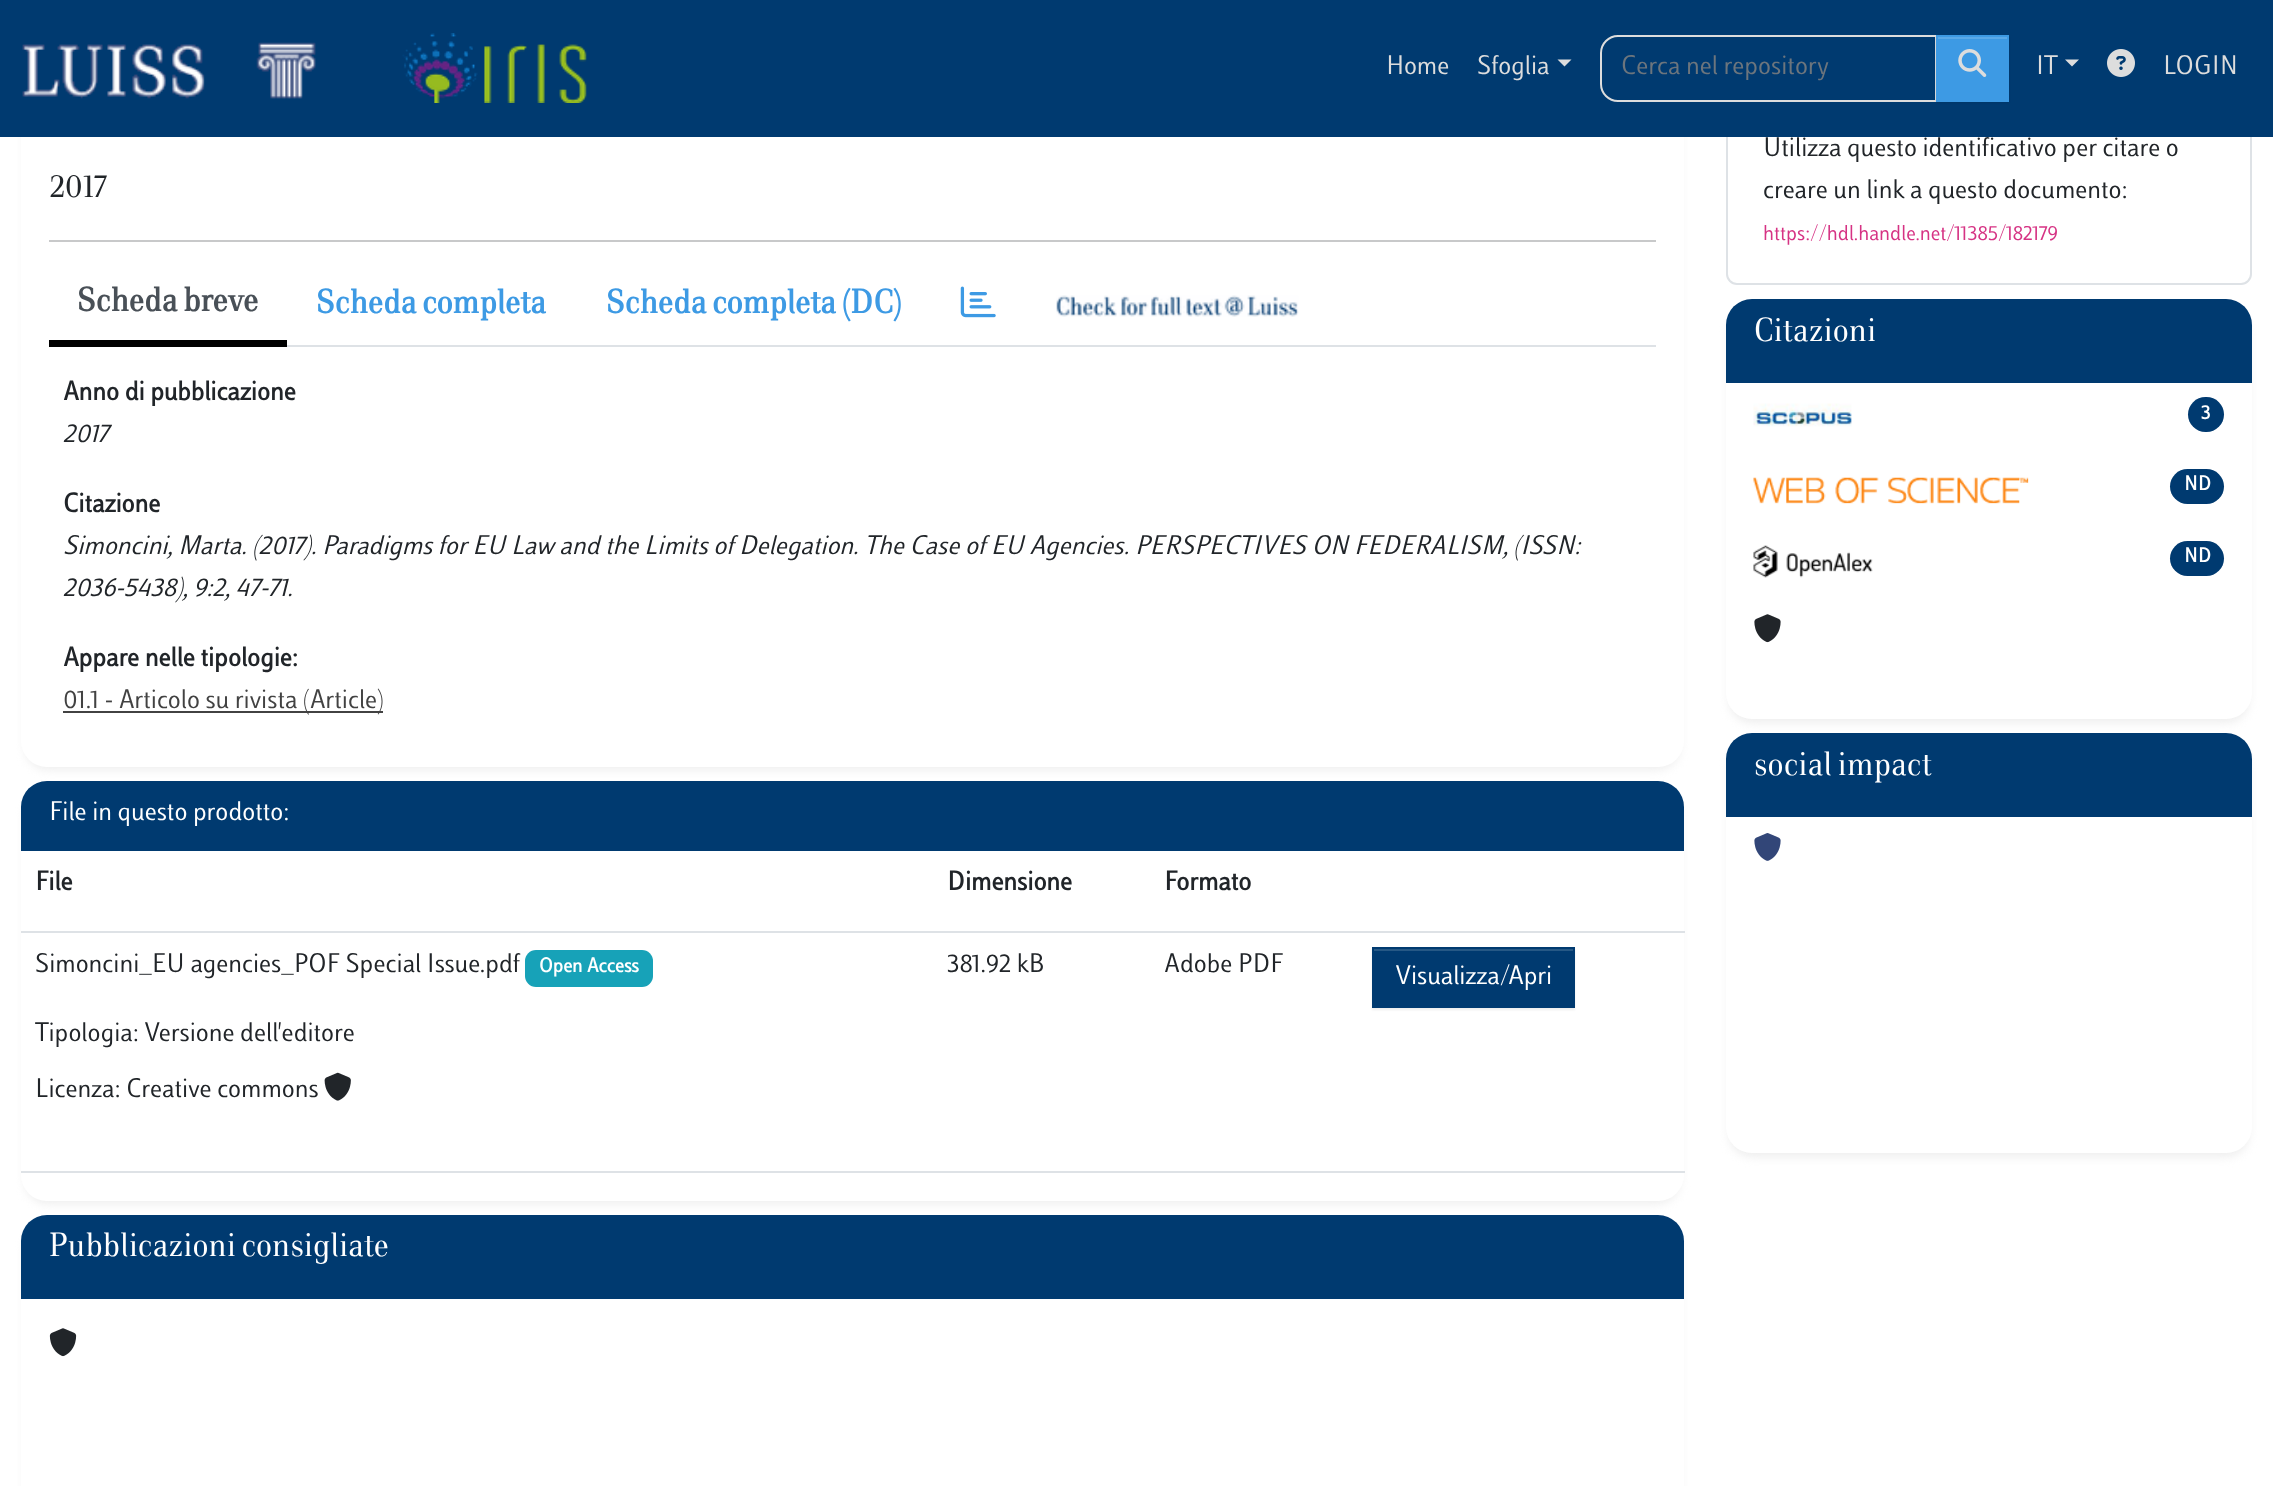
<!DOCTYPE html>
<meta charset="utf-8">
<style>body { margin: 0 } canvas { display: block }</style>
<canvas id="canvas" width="2273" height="1486"></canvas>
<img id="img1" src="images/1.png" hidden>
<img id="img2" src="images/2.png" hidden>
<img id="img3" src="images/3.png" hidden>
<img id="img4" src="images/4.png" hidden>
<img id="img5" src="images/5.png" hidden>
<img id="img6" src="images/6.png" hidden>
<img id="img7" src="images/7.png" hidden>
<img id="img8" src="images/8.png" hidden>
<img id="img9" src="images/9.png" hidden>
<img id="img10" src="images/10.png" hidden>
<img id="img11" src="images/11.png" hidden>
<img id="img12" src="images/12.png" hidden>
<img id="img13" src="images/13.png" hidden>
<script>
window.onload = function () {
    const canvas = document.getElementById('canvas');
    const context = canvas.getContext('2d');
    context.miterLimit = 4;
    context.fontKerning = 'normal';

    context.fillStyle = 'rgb(255, 255, 255)';
    context.fillRect(0, 0, 2273, 1486);
    context.fillStyle = 'rgb(238, 238, 238)';
    context.filter = 'blur(5px)';
    context.beginPath();
    context.roundRect(25, 19, 1655, 751, 23);
    context.fill();
    context.filter = 'none';
    context.fillStyle = 'rgb(255, 255, 255)';
    context.beginPath();
    context.roundRect(21, 9, 1663, 758, 26);
    context.fill();
    context.beginPath();
    context.roundRect(1727, 10, 524, 274, 10);
    context.strokeStyle = 'rgb(222, 226, 230)';
    context.lineWidth = 2;
    context.stroke();
    context.fillStyle = 'rgb(0, 58, 112)';
    context.fillRect(0, 0, 2273, 137);
    context.drawImage(document.getElementById('img1'), 22, 42, 294, 57);
    context.drawImage(document.getElementById('img2'), 402, 33, 185, 70);
    context.fillStyle = 'rgb(221, 221, 221)';
    context.beginPath();
    context.moveTo(1557.5, 59.5);
    context.lineTo(1571.5, 59.5);
    context.lineTo(1564.5, 66.5);
    context.closePath();
    context.fill();
    context.beginPath();
    context.roundRect(1601, 36, 335, 65, [17, 0, 0, 17]);
    context.strokeStyle = 'rgb(221, 221, 221)';
    context.stroke();
    context.fillStyle = 'rgba(0, 0, 0, 0.07)';
    context.filter = 'blur(1px)';
    context.beginPath();
    context.rect(1936, 37, 73, 66);
    context.fill();
    context.filter = 'none';
    context.fillStyle = 'rgb(61, 154, 228)';
    context.fillRect(1938, 39, 69, 61);
    context.fillStyle = 'rgb(90, 169, 232)';
    context.fillRect(1937, 37, 70, 2);
    context.strokeStyle = 'rgb(61, 154, 228)';
    context.strokeRect(1937, 36, 71, 65);
    context.drawImage(document.getElementById('img3'), 1958, 49, 29, 28);
    context.fillStyle = 'rgb(221, 221, 221)';
    context.beginPath();
    context.moveTo(2065, 59.5);
    context.lineTo(2079, 59.5);
    context.lineTo(2072, 66.5);
    context.closePath();
    context.fill();
    context.drawImage(document.getElementById('img4'), 2107, 49, 28, 28);
    context.fillStyle = 'rgb(200, 201, 202)';
    context.fillRect(49, 240, 1607, 2);
    context.fillStyle = 'rgb(222, 226, 230)';
    context.fillRect(287, 345, 1369, 2);
    context.fillStyle = 'rgb(0, 0, 0)';
    context.fillRect(49, 340, 238, 7);
    context.drawImage(document.getElementById('img5'), 960, 286, 36, 32);
    context.drawImage(document.getElementById('img6'), 1056, 295, 243, 22);
    context.fillStyle = 'rgb(66, 66, 66)';
    context.fillRect(63, 711, 320, 2);
    context.fillStyle = 'rgb(238, 238, 238)';
    context.filter = 'blur(5px)';
    context.beginPath();
    context.roundRect(25, 791, 1655, 413, 23);
    context.fill();
    context.filter = 'none';
    context.fillStyle = 'rgb(255, 255, 255)';
    context.beginPath();
    context.roundRect(21, 781, 1663, 420, 26);
    context.fill();
    context.fillStyle = 'rgb(0, 58, 112)';
    context.beginPath();
    context.roundRect(21, 781, 1663, 70, [26, 26, 0, 0]);
    context.fill();
    context.fillStyle = 'rgb(222, 226, 230)';
    context.fillRect(21, 931, 1664, 2);
    context.fillStyle = 'rgb(23, 162, 184)';
    context.beginPath();
    context.roundRect(525, 950, 128, 37, 11);
    context.fill();
    context.drawImage(document.getElementById('img7'), 324, 1072, 27, 29);
    context.fillStyle = 'rgb(222, 226, 230)';
    context.fillRect(21, 1171, 1664, 2);
    context.fillStyle = 'rgba(0, 0, 0, 0.07)';
    context.filter = 'blur(1px)';
    context.beginPath();
    context.rect(1372, 949, 203, 61);
    context.fill();
    context.filter = 'none';
    context.fillStyle = 'rgb(0, 58, 112)';
    context.fillRect(1372, 947, 203, 61);
    context.fillStyle = 'rgb(38, 88, 133)';
    context.fillRect(1374, 949, 199, 2);
    context.fillStyle = 'rgb(238, 238, 238)';
    context.filter = 'blur(5px)';
    context.beginPath();
    context.roundRect(25, 1225, 1655, 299, 23);
    context.fill();
    context.filter = 'none';
    context.fillStyle = 'rgb(255, 255, 255)';
    context.beginPath();
    context.roundRect(21, 1215, 1663, 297, 26);
    context.fill();
    context.fillStyle = 'rgb(0, 58, 112)';
    context.beginPath();
    context.roundRect(21, 1215, 1663, 84, [26, 26, 0, 0]);
    context.fill();
    context.drawImage(document.getElementById('img8'), 49, 1328, 28, 29);
    context.fillStyle = 'rgb(238, 238, 238)';
    context.filter = 'blur(5px)';
    context.beginPath();
    context.roundRect(1729, 310, 520, 413, 23);
    context.fill();
    context.filter = 'none';
    context.fillStyle = 'rgb(255, 255, 255)';
    context.beginPath();
    context.roundRect(1726, 299, 526, 420, 26);
    context.fill();
    context.fillStyle = 'rgb(0, 58, 112)';
    context.beginPath();
    context.roundRect(1726, 299, 526, 84, [26, 26, 0, 0]);
    context.fill();
    context.drawImage(document.getElementById('img9'), 1753, 403, 99, 24);
    context.beginPath();
    context.roundRect(2188, 397, 36, 35, 17.5);
    context.fill();
    context.drawImage(document.getElementById('img10'), 1753, 477, 276, 27);
    context.beginPath();
    context.roundRect(2170, 469, 54, 35, 17.5);
    context.fill();
    context.drawImage(document.getElementById('img11'), 1753, 545, 120, 33);
    context.beginPath();
    context.roundRect(2170, 541, 54, 35, 17.5);
    context.fill();
    context.drawImage(document.getElementById('img12'), 1754, 614, 27, 29);
    context.fillStyle = 'rgb(238, 238, 238)';
    context.filter = 'blur(5px)';
    context.beginPath();
    context.roundRect(1729, 744, 520, 413, 23);
    context.fill();
    context.filter = 'none';
    context.fillStyle = 'rgb(255, 255, 255)';
    context.beginPath();
    context.roundRect(1726, 733, 526, 420, 26);
    context.fill();
    context.fillStyle = 'rgb(0, 58, 112)';
    context.beginPath();
    context.roundRect(1726, 733, 526, 84, [26, 26, 0, 0]);
    context.fill();
    context.drawImage(document.getElementById('img13'), 1754, 833, 27, 28);
    context.font = '28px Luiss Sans';
    context.fillStyle = 'rgb(221, 221, 221)';
    context.fillText('Home', 1386, 74);
    context.fillText('Sfoglia', 1477, 74);
    context.fillStyle = 'rgb(108, 117, 125)';
    context.fillText('Cerca nel repository', 1621, 74);
    context.fillStyle = 'rgb(221, 221, 221)';
    context.fillText('IT', 2036, 74);
    context.fillText('LOGIN', 2163, 74);
    context.font = '35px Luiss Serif';
    context.fillStyle = 'rgb(33, 37, 41)';
    context.fillText('2017', 49, 197);
    context.font = 'bold 35px Luiss Serif';
    context.fillStyle = 'rgb(73, 80, 87)';
    context.fillText('Scheda breve', 77, 311);
    context.fillStyle = 'rgb(61, 154, 228)';
    context.fillText('Scheda completa', 316, 313);
    context.fillText('Scheda completa (DC)', 606, 313);
    context.font = 'bold 28px Luiss Sans';
    context.fillStyle = 'rgb(33, 37, 41)';
    context.fillText('Anno di pubblicazione', 63, 400);
    context.font = 'italic 28px Luiss Sans';
    context.fillText('2017', 63, 442);
    context.font = 'bold 28px Luiss Sans';
    context.fillText('Citazione', 63, 512);
    context.font = 'italic 28px Luiss Sans';
    context.fillText('Simoncini, Marta. (2017). Paradigms for EU Law and the Limits of Delegation. The Case of EU Agencies. PERSPECTIVES ON FEDERALISM, (ISSN:', 63, 554);
    context.fillText('2036-5438), 9:2, 47-71.', 63, 596);
    context.font = 'bold 28px Luiss Sans';
    context.fillText('Appare nelle tipologie:', 63, 666);
    context.font = '28px Luiss Sans';
    context.fillStyle = 'rgb(66, 66, 66)';
    context.fillText('01.1 - Articolo su rivista (Article)', 63, 708);
    context.fillStyle = 'rgb(255, 255, 255)';
    context.fillText('File in questo prodotto:', 49, 820);
    context.font = 'bold 28px Luiss Sans';
    context.fillStyle = 'rgb(33, 37, 41)';
    context.fillText('File', 35, 890);
    context.fillText('Dimensione', 947, 890);
    context.fillText('Formato', 1164, 890);
    context.font = '28px Luiss Sans';
    context.fillText('Simoncini_EU agencies_POF Special Issue.pdf', 35, 972);
    context.font = 'bold 21px Luiss Sans';
    context.fillStyle = 'rgb(255, 255, 255)';
    context.fillText('Open Access', 539, 972);
    context.font = '28px Luiss Sans';
    context.fillStyle = 'rgb(33, 37, 41)';
    context.fillText('Tipologia:', 35, 1041);
    context.fillText('Versione dell\'editore', 144, 1041);
    context.fillText('Licenza: Creative commons', 35, 1097);
    context.fillText('381.92 kB', 947, 972);
    context.fillText('Adobe PDF', 1164, 972);
    context.fillStyle = 'rgb(255, 255, 255)';
    context.fillText('Visualizza/Apri', 1395, 984);
    context.font = '35px Luiss Serif';
    context.fillText('Pubblicazioni consigliate', 49, 1256);
    context.font = '28px Luiss Sans';
    context.fillStyle = 'rgb(33, 37, 41)';
    context.fillText('Utilizza questo identificativo per citare o', 1763, 156);
    context.fillText('creare un link a questo documento:', 1763, 198);
    context.font = '22.4px Luiss Sans';
    context.fillStyle = 'rgb(214, 51, 132)';
    context.fillText('https://hdl.handle.net/11385/182179', 1763, 240);
    context.font = '35px Luiss Serif';
    context.fillStyle = 'rgb(255, 255, 255)';
    context.fillText('Citazioni', 1754, 341);
    context.font = 'bold 21px Luiss Sans';
    context.fillText('3', 2201, 419);
    context.fillText('ND', 2184, 490);
    context.fillText('ND', 2184, 562);
    context.font = '35px Luiss Serif';
    context.fillText('social impact', 1754, 775);
};
</script>
